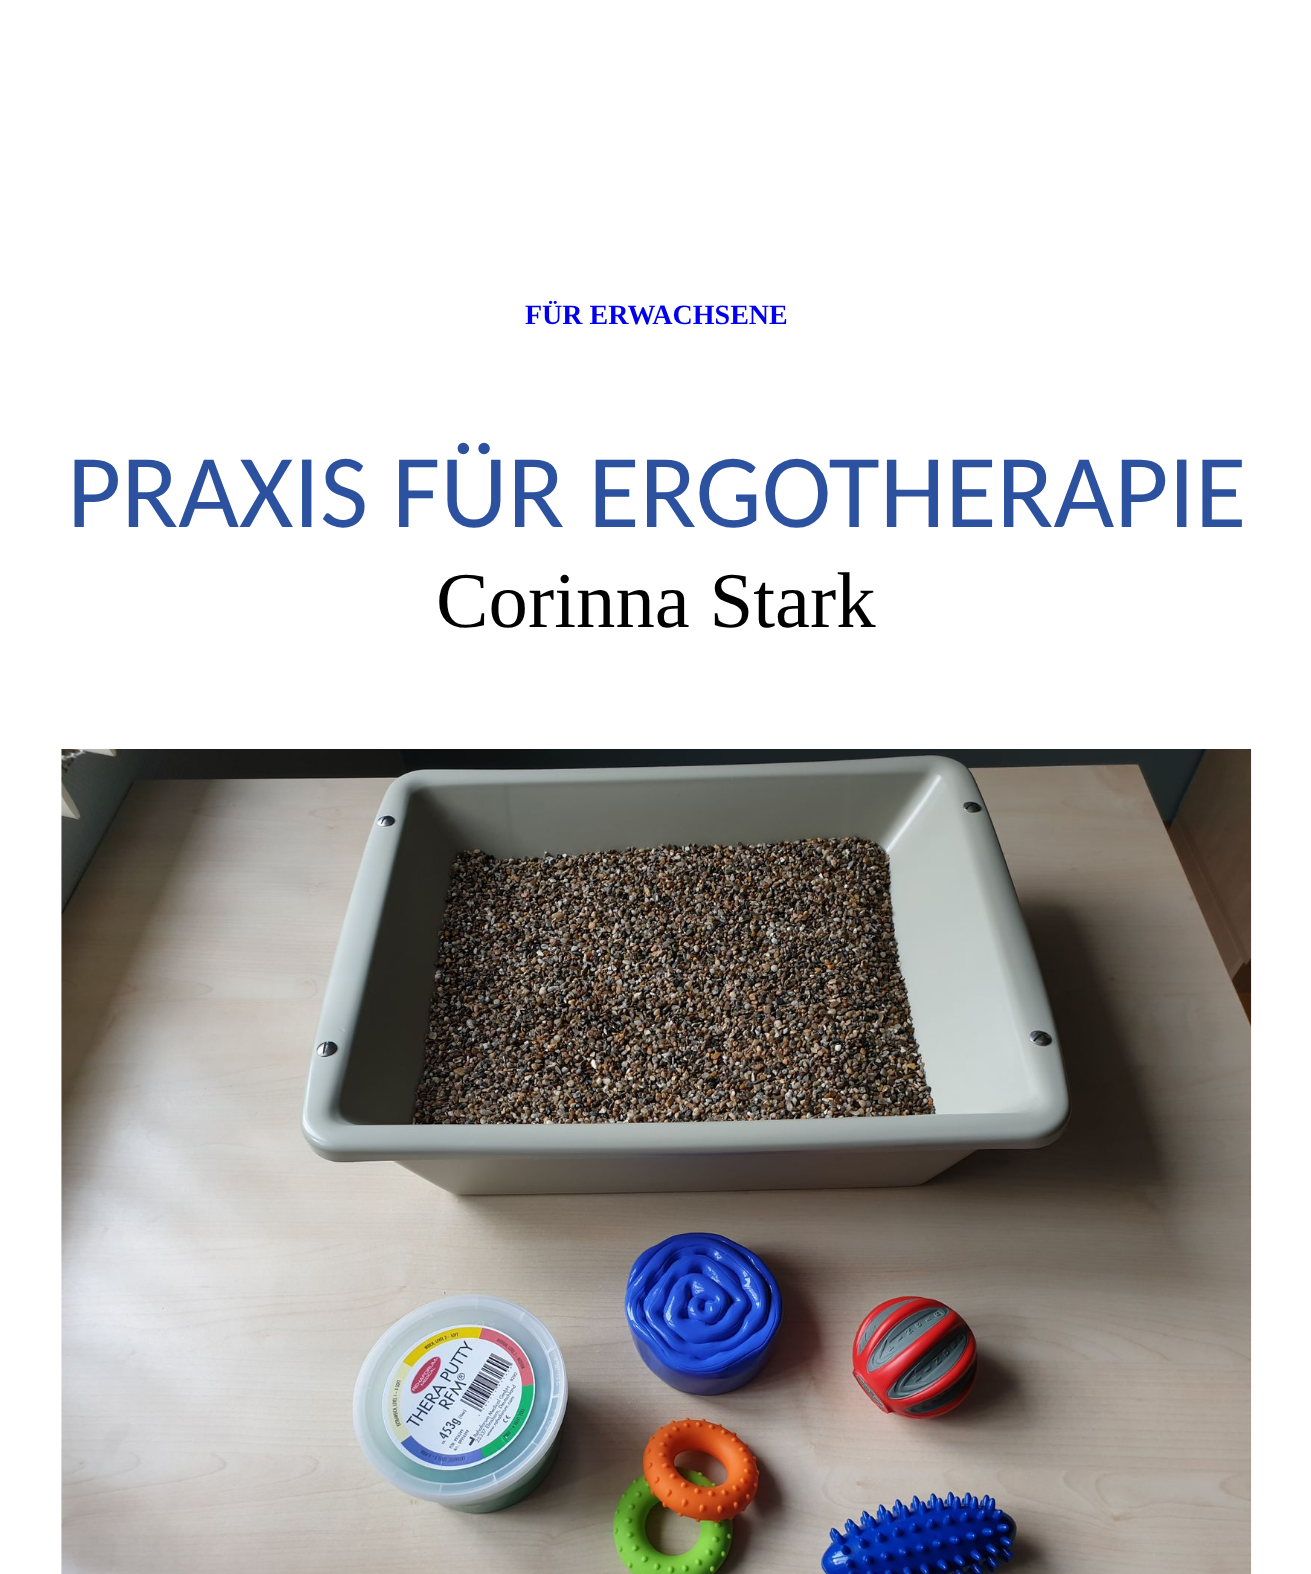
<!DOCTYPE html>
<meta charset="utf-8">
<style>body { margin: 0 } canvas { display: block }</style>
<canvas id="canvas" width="1311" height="1574"></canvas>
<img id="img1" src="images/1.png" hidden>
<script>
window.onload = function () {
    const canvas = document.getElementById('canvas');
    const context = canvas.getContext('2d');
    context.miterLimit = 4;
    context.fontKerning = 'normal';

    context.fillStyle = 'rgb(255, 255, 255)';
    context.fillRect(0, 0, 1311, 1574);
    context.drawImage(document.getElementById('img1'), 61, 749, 1191, 825);
    context.font = 'bold 28px Liberation Serif';
    context.fillStyle = 'rgb(0, 0, 238)';
    context.fillText('FÜR ERWACHSENE', 525, 324);
    context.font = '105px Carlito';
    context.fillStyle = 'rgb(43, 81, 159)';
    context.fillText('PRAXIS FÜR ERGOTHERAPIE', 67, 527);
    context.font = '78.75px Liberation Serif';
    context.fillStyle = 'rgb(0, 0, 0)';
    context.fillText('Corinna Stark', 436, 627);
};
</script>
